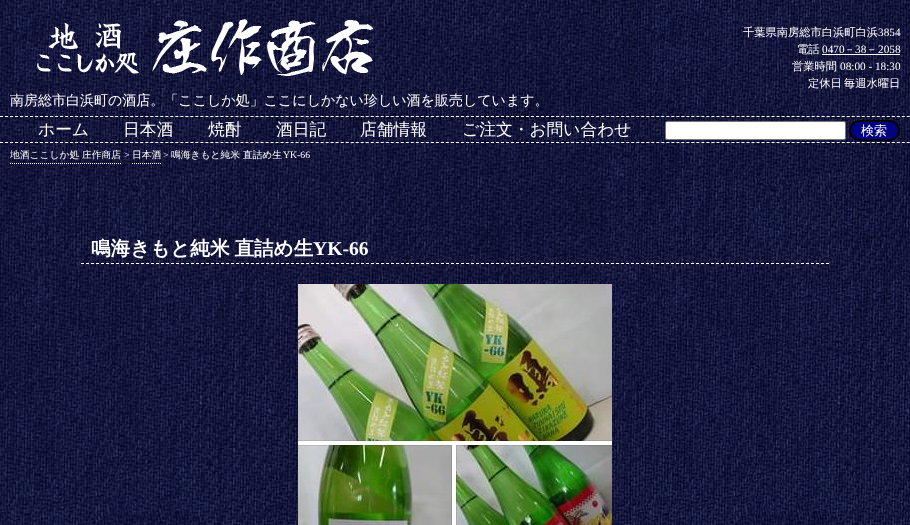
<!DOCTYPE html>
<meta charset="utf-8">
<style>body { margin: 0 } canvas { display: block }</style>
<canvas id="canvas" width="910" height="525"></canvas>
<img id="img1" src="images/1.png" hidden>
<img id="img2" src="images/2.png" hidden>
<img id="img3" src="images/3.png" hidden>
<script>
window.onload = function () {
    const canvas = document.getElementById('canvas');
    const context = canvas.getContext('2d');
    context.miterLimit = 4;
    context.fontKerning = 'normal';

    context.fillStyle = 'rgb(255, 255, 255)';
    context.fillRect(0, 0, 910, 525);
    context.drawImage(document.getElementById('img1'), 0, 0, 910, 525);
    context.fillRect(822, 54, 78, 1);
    context.drawImage(document.getElementById('img2'), 37, 19, 336, 57);
    context.beginPath();
    context.moveTo(0, 116.5);
    context.lineTo(910, 116.5);
    context.strokeStyle = 'rgb(255, 255, 255)';
    context.setLineDash([3, 2.01]);
    context.stroke();
    context.beginPath();
    context.moveTo(0, 142.5);
    context.lineTo(910, 142.5);
    context.stroke();
    context.beginPath();
    context.roundRect(665.5, 121.5, 180, 18, 1.5);
    context.fill();
    context.strokeStyle = 'rgb(118, 118, 118)';
    context.setLineDash([]);
    context.stroke();
    context.fillStyle = 'rgb(0, 0, 128)';
    context.beginPath();
    context.roundRect(850, 121, 49, 19, 9.5);
    context.fill();
    context.strokeStyle = 'rgb(0, 0, 0)';
    context.lineWidth = 2;
    context.stroke();
    context.beginPath();
    context.moveTo(10, 163.5);
    context.lineTo(121, 163.5);
    context.strokeStyle = 'rgb(255, 255, 255)';
    context.lineWidth = 1;
    context.setLineDash([1, 1]);
    context.stroke();
    context.beginPath();
    context.moveTo(132, 163.5);
    context.lineTo(161, 163.5);
    context.stroke();
    context.beginPath();
    context.moveTo(81, 263.5);
    context.lineTo(829, 263.5);
    context.setLineDash([3, 2]);
    context.stroke();
    context.drawImage(document.getElementById('img3'), 298, 284, 314, 241);
    context.font = '500 11.25px WenQuanYi Zen Hei';
    context.fillStyle = 'rgb(255, 255, 255)';
    context.fillText('千葉県南房総市白浜町白浜', 743, 36);
    context.font = '11.25px Liberation Serif';
    context.fillText('3854', 878, 36);
    context.font = '500 11.25px WenQuanYi Zen Hei';
    context.fillText('電話', 797, 53);
    context.font = '11.25px Liberation Serif';
    context.fillText('0470', 822, 53);
    context.font = '500 11.25px WenQuanYi Zen Hei';
    context.fillText('－', 844, 53);
    context.font = '11.25px Liberation Serif';
    context.fillText('38', 855, 53);
    context.font = '500 11.25px WenQuanYi Zen Hei';
    context.fillText('－', 866, 53);
    context.font = '11.25px Liberation Serif';
    context.fillText('2058', 878, 53);
    context.font = '500 11.25px WenQuanYi Zen Hei';
    context.fillText('営業時間', 792, 70);
    context.font = '11.25px Liberation Serif';
    context.fillText('08:00 - 18:30', 840, 70);
    context.wordSpacing = '-1px';
    context.font = '500 11.25px WenQuanYi Zen Hei';
    context.fillText('定休日 毎週水曜日', 808, 87);
    context.wordSpacing = '0px';
    context.font = '500 14px WenQuanYi Zen Hei';
    context.fillText('南房総市白浜町の酒店。「ここしか処」ここにしかない珍しい酒を販売しています。', 10, 105);
    context.font = '500 16.75px WenQuanYi Zen Hei';
    context.fillText('ホーム', 38, 135);
    context.fillText('日本酒', 123, 135);
    context.fillText('焼酎', 208, 135);
    context.fillText('酒日記', 276, 135);
    context.fillText('店舗情報', 360, 135);
    context.fillText('ご注文・お問い合わせ', 462, 135);
    context.font = '500 13px WenQuanYi Zen Hei';
    context.fillText('検索', 861, 135);
    context.font = '500 9.75px WenQuanYi Zen Hei';
    context.fillText('地酒ここしか処 庄作商店', 10, 158);
    context.font = '9.75px Liberation Serif';
    context.fillText('>', 124, 158);
    context.font = '500 9.75px WenQuanYi Zen Hei';
    context.fillText('日本酒', 132, 158);
    context.font = '9.75px Liberation Serif';
    context.fillText('>', 163, 158);
    context.font = '500 9.75px WenQuanYi Zen Hei';
    context.fillText('鳴海きもと純米 直詰め生', 171, 158);
    context.font = '9.75px Liberation Serif';
    context.fillText('YK-66', 283, 158);
    context.wordSpacing = '-1px';
    context.font = 'bold 19.6px WenQuanYi Zen Hei';
    context.fillText('鳴海きもと純米 直詰め生', 91, 255);
    context.wordSpacing = '0px';
    context.font = 'bold 19.6px Liberation Serif';
    context.fillText('YK-66', 313, 255);
};
</script>
